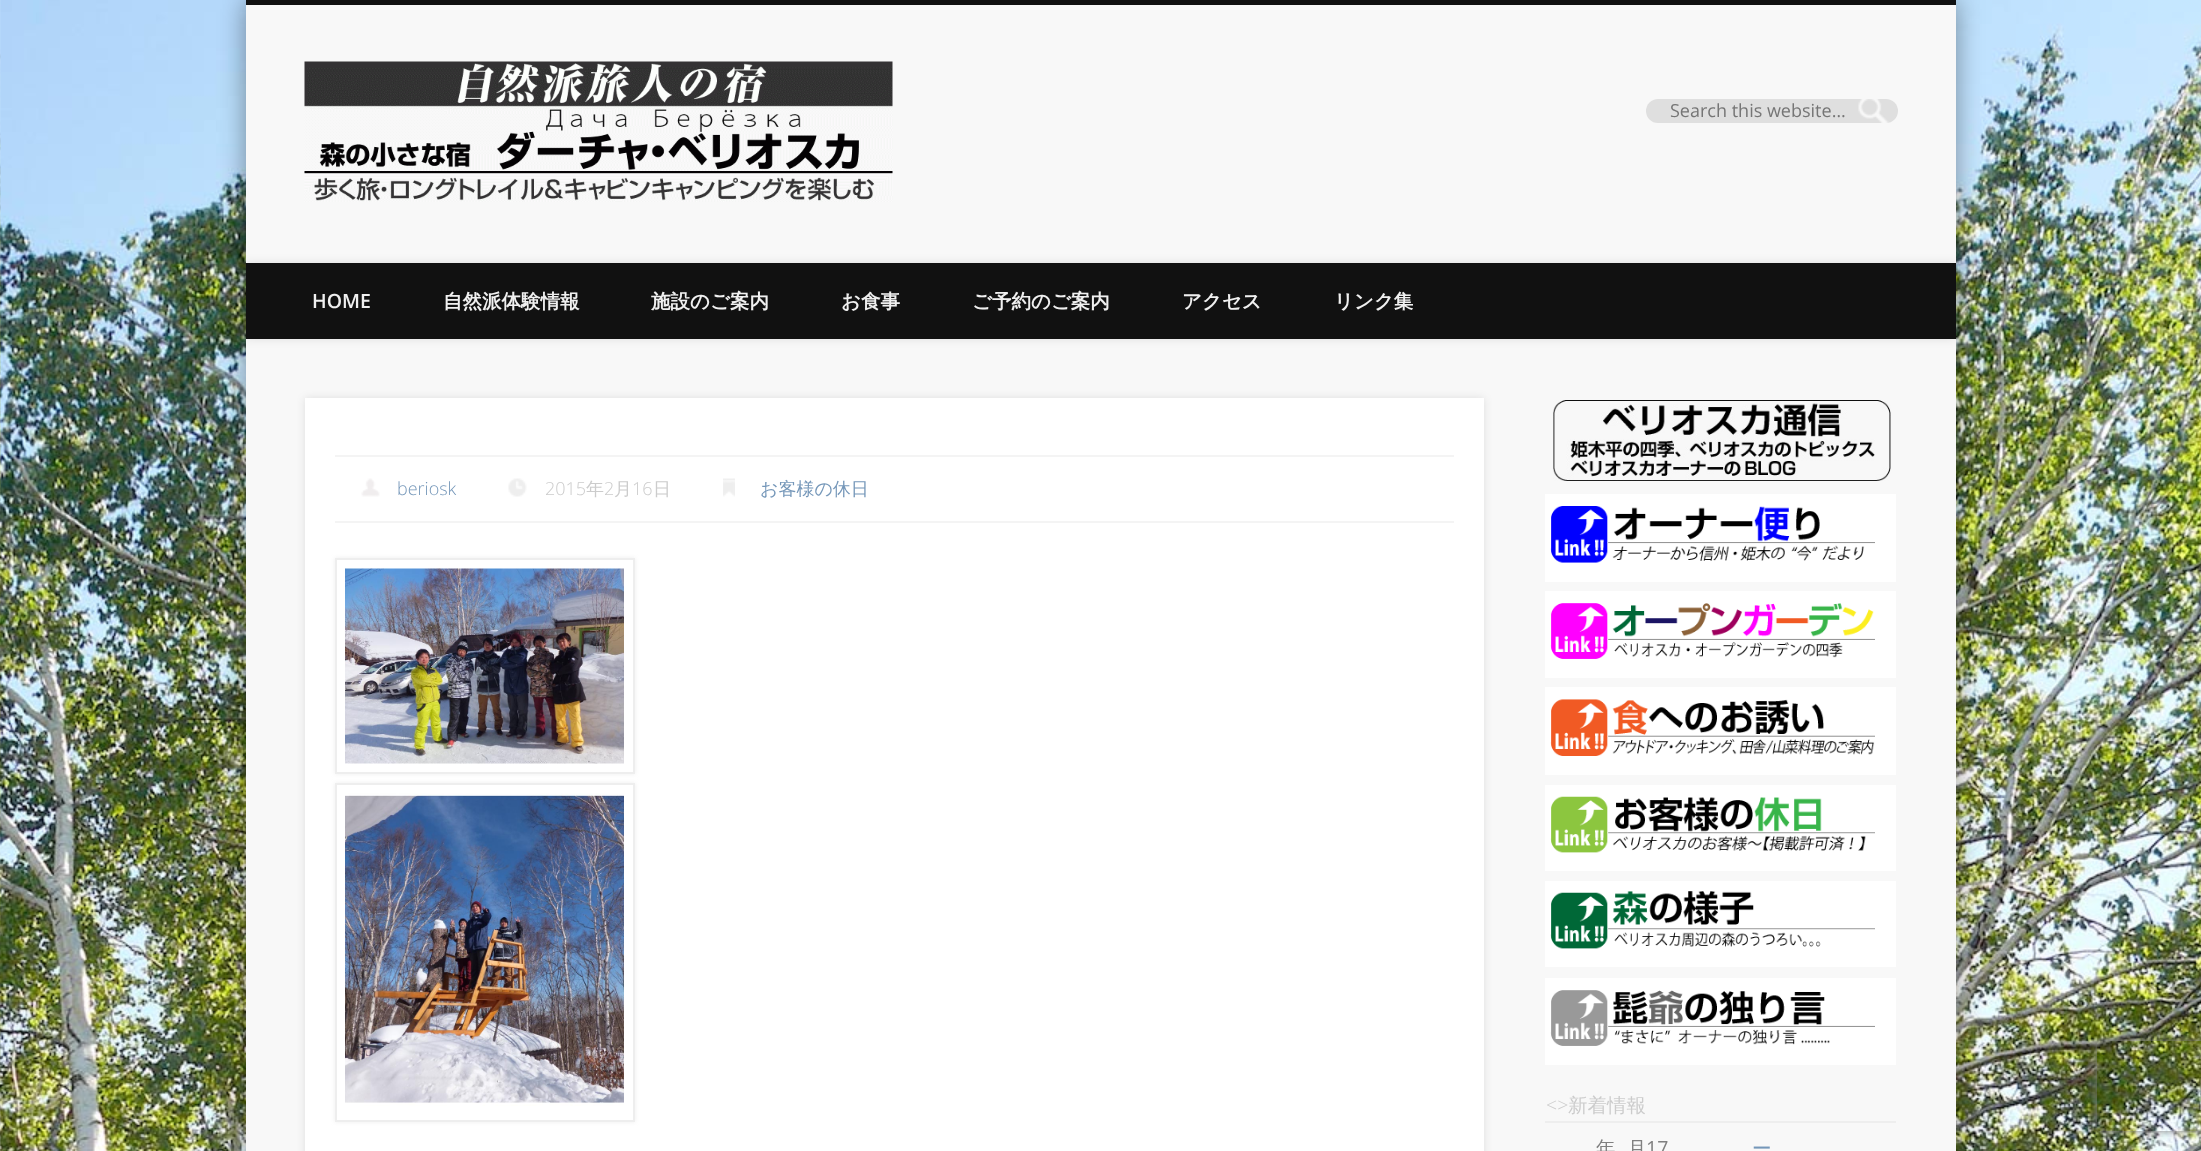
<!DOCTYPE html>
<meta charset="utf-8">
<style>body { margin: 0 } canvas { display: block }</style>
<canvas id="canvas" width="2201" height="1151"></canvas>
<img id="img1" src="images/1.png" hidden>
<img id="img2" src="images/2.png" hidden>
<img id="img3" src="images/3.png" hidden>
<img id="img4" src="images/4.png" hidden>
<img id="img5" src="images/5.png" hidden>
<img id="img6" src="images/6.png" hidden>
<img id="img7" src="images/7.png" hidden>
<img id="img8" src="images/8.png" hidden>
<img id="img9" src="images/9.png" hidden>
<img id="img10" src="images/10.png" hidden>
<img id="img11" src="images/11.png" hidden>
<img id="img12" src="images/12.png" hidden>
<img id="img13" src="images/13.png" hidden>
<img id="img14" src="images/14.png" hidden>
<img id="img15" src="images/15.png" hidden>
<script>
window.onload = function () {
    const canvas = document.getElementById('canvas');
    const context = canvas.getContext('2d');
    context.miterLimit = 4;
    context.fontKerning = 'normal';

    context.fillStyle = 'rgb(255, 255, 255)';
    context.fillRect(0, 0, 2201, 1151);
    context.drawImage(document.getElementById('img1'), 0, 0, 2201, 1151);
    context.fillStyle = 'rgba(0, 0, 0, 0.4)';
    context.filter = 'blur(13.5px)';
    context.beginPath();
    context.rect(246, 0, 1710, 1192);
    context.fill();
    context.filter = 'none';
    context.fillStyle = 'rgb(248, 248, 248)';
    context.fillRect(246, 5, 1710, 1146);
    context.fillStyle = 'rgb(17, 17, 17)';
    context.fillRect(246, 0, 1710, 5);
    context.drawImage(document.getElementById('img2'), 304, 61, 589, 141);
    context.fillStyle = 'rgb(223, 223, 223)';
    context.beginPath();
    context.roundRect(1646, 99, 252, 24, 12);
    context.fill();
    context.drawImage(document.getElementById('img3'), 1858, 99, 31, 24);
    context.save();
    context.beginPath();
    context.rect(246, 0, 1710, 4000);
    context.clip();
    context.fillStyle = 'rgba(0, 0, 0, 0.1)';
    context.filter = 'blur(5px)';
    context.beginPath();
    context.rect(246, 263, 1710, 76);
    context.fill();
    context.filter = 'none';
    context.restore();
    context.fillStyle = 'rgb(17, 17, 17)';
    context.fillRect(246, 263, 1710, 76);
    context.fillStyle = 'rgba(0, 0, 0, 0.1)';
    context.filter = 'blur(4px)';
    context.beginPath();
    context.rect(305, 398, 1179, 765);
    context.fill();
    context.filter = 'none';
    context.fillStyle = 'rgb(255, 255, 255)';
    context.fillRect(305, 398, 1179, 753);
    context.fillStyle = 'rgb(244, 244, 244)';
    context.fillRect(335, 455, 1119, 2);
    context.fillRect(335, 521, 1119, 2);
    context.drawImage(document.getElementById('img4'), 361, 478, 19, 19);
    context.drawImage(document.getElementById('img5'), 508, 478, 19, 19);
    context.drawImage(document.getElementById('img6'), 723, 478, 12, 19);
    context.fillStyle = 'rgb(238, 238, 238)';
    context.filter = 'blur(2px)';
    context.beginPath();
    context.rect(335, 558, 300, 216);
    context.fill();
    context.filter = 'none';
    context.fillStyle = 'rgb(255, 255, 255)';
    context.beginPath();
    context.rect(336, 559, 298, 214);
    context.fill();
    context.strokeStyle = 'rgb(238, 238, 238)';
    context.lineWidth = 2;
    context.stroke();
    context.drawImage(document.getElementById('img7'), 345, 568, 279, 196);
    context.fillStyle = 'rgb(238, 238, 238)';
    context.filter = 'blur(2px)';
    context.beginPath();
    context.rect(335, 783, 300, 339);
    context.fill();
    context.filter = 'none';
    context.fillStyle = 'rgb(255, 255, 255)';
    context.beginPath();
    context.rect(336, 784, 298, 337);
    context.fill();
    context.stroke();
    context.drawImage(document.getElementById('img8'), 345, 793, 279, 313);
    context.drawImage(document.getElementById('img9'), 1553, 400, 338, 81);
    context.drawImage(document.getElementById('img10'), 1545, 494, 351, 88);
    context.drawImage(document.getElementById('img11'), 1545, 591, 351, 87);
    context.drawImage(document.getElementById('img12'), 1545, 687, 351, 88);
    context.drawImage(document.getElementById('img13'), 1545, 785, 351, 86);
    context.drawImage(document.getElementById('img14'), 1545, 881, 351, 86);
    context.drawImage(document.getElementById('img15'), 1545, 978, 351, 87);
    context.fillStyle = 'rgb(238, 238, 238)';
    context.fillRect(1545, 1121, 351, 2);
    context.save();
    context.beginPath();
    context.moveTo(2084, 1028);
    context.lineTo(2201, 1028);
    context.lineTo(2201, 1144);
    context.lineTo(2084, 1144);
    context.closePath();
    context.moveTo(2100, 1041);
    context.lineTo(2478, 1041);
    context.bezierCurveTo(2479.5, 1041, 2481, 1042.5, 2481, 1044);
    context.lineTo(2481, 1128);
    context.bezierCurveTo(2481, 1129.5, 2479.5, 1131, 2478, 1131);
    context.lineTo(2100, 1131);
    context.bezierCurveTo(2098.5, 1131, 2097, 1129.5, 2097, 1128);
    context.lineTo(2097, 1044);
    context.bezierCurveTo(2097, 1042.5, 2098.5, 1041, 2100, 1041);
    context.closePath();
    context.clip('evenodd');
    context.fillStyle = 'rgb(128, 128, 128)';
    context.filter = 'blur(4px)';
    context.beginPath();
    context.roundRect(2097, 1041, 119, 90, 3);
    context.fill();
    context.filter = 'none';
    context.restore();
    context.font = '18px Open Sans';
    context.fillStyle = 'rgb(117, 117, 117)';
    context.fillText('Search this website…', 1670, 117);
    context.font = '600 19.5px Open Sans';
    context.fillStyle = 'rgb(240, 240, 240)';
    context.fillText('HOME', 312, 308);
    context.font = 'bold 19.5px WenQuanYi Zen Hei';
    context.fillText('自然派体験情報', 443, 308);
    context.fillText('施設のご案内', 651, 308);
    context.fillText('お食事', 841, 308);
    context.fillText('ご予約のご案内', 972, 308);
    context.fillText('アクセス', 1182, 308);
    context.fillText('リンク集', 1334, 308);
    context.font = '300 18px Open Sans';
    context.fillStyle = 'rgb(117, 151, 185)';
    context.fillText('beriosk', 397, 495);
    context.fillStyle = 'rgb(204, 204, 204)';
    context.fillText('2015', 545, 495);
    context.font = '500 18px WenQuanYi Zen Hei';
    context.fillText('年', 586, 495);
    context.font = '300 18px Open Sans';
    context.fillText('2', 604, 495);
    context.font = '500 18px WenQuanYi Zen Hei';
    context.fillText('月', 614, 495);
    context.font = '300 18px Open Sans';
    context.fillText('16', 632, 495);
    context.font = '500 18px WenQuanYi Zen Hei';
    context.fillText('日', 653, 495);
    context.fillStyle = 'rgb(117, 151, 185)';
    context.fillText('お客様の休日', 760, 495);
    context.font = '300 19.5px Open Sans';
    context.fillStyle = 'rgb(204, 204, 204)';
    context.fillText('<>', 1546, 1112);
    context.font = '500 19.5px WenQuanYi Zen Hei';
    context.fillText('新着情報', 1568, 1112);
    context.fillStyle = 'rgb(128, 128, 128)';
    context.fillText('年', 1596, 1155);
    context.fillText('月', 1627, 1155);
    context.font = '19.5px Open Sans';
    context.fillText('17', 1646, 1155);
    context.font = '500 19.5px WenQuanYi Zen Hei';
    context.fillStyle = 'rgb(117, 151, 185)';
    context.fillText('ー', 1752, 1155);
};
</script>
